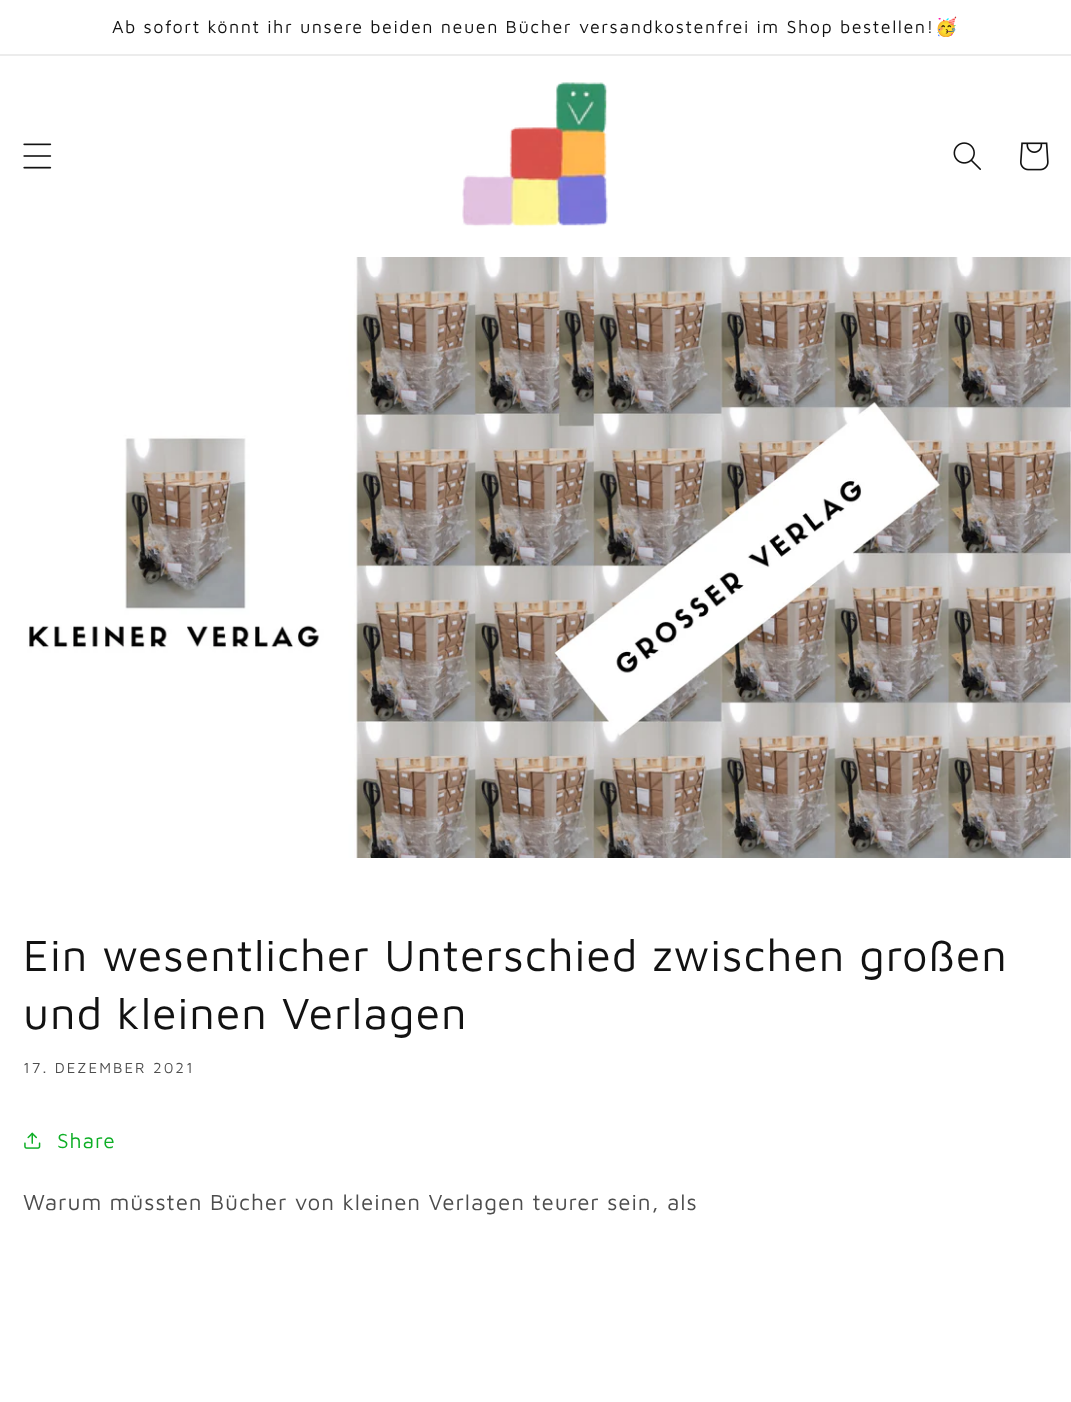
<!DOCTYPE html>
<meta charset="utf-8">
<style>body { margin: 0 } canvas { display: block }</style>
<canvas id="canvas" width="1071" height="1402"></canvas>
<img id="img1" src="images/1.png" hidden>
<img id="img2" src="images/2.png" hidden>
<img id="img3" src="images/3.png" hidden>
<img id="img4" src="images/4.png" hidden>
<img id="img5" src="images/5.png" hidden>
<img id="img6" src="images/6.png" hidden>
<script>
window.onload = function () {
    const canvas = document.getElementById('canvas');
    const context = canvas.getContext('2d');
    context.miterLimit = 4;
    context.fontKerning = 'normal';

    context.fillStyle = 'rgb(255, 255, 255)';
    context.fillRect(0, 0, 1071, 1402);
    context.fillStyle = 'rgb(236, 236, 236)';
    context.fillRect(0, 54, 1071, 2);
    context.drawImage(document.getElementById('img1'), 23, 143, 29, 26);
    context.drawImage(document.getElementById('img2'), 462, 82, 146, 145);
    context.drawImage(document.getElementById('img3'), 953, 142, 28, 28);
    context.drawImage(document.getElementById('img4'), 1020, 142, 29, 29);
    context.drawImage(document.getElementById('img5'), 0, 257, 1071, 601);
    context.drawImage(document.getElementById('img6'), 24, 1132, 17, 17);
    context.letterSpacing = '1.5px';
    context.font = '18px Maven Pro';
    context.fillStyle = 'rgb(18, 18, 18)';
    context.fillText('Ab sofort könnt ihr unsere beiden neuen Bücher versandkostenfrei im Shop bestellen!', 112, 33);
    context.font = '18px Noto Color Emoji';
    context.fillText('🥳', 935, 33);
    context.letterSpacing = '0.9px';
    context.font = '45px Maven Pro';
    context.fillText('Ein wesentlicher Unterschied zwischen großen', 23, 971);
    context.fillText('und kleinen Verlagen', 23, 1029);
    context.letterSpacing = '2px';
    context.font = '15px Maven Pro';
    context.fillStyle = 'rgb(77, 77, 77)';
    context.fillText('17. DEZEMBER 2021', 23, 1073);
    context.letterSpacing = '0.9px';
    context.font = '21px Maven Pro';
    context.fillStyle = 'rgb(13, 174, 37)';
    context.fillText('Share', 57, 1148);
    context.font = '22.5px Maven Pro';
    context.fillStyle = 'rgb(77, 77, 77)';
    context.fillText('Warum müssten Bücher von kleinen Verlagen teurer sein, als', 23, 1210);
};
</script>
